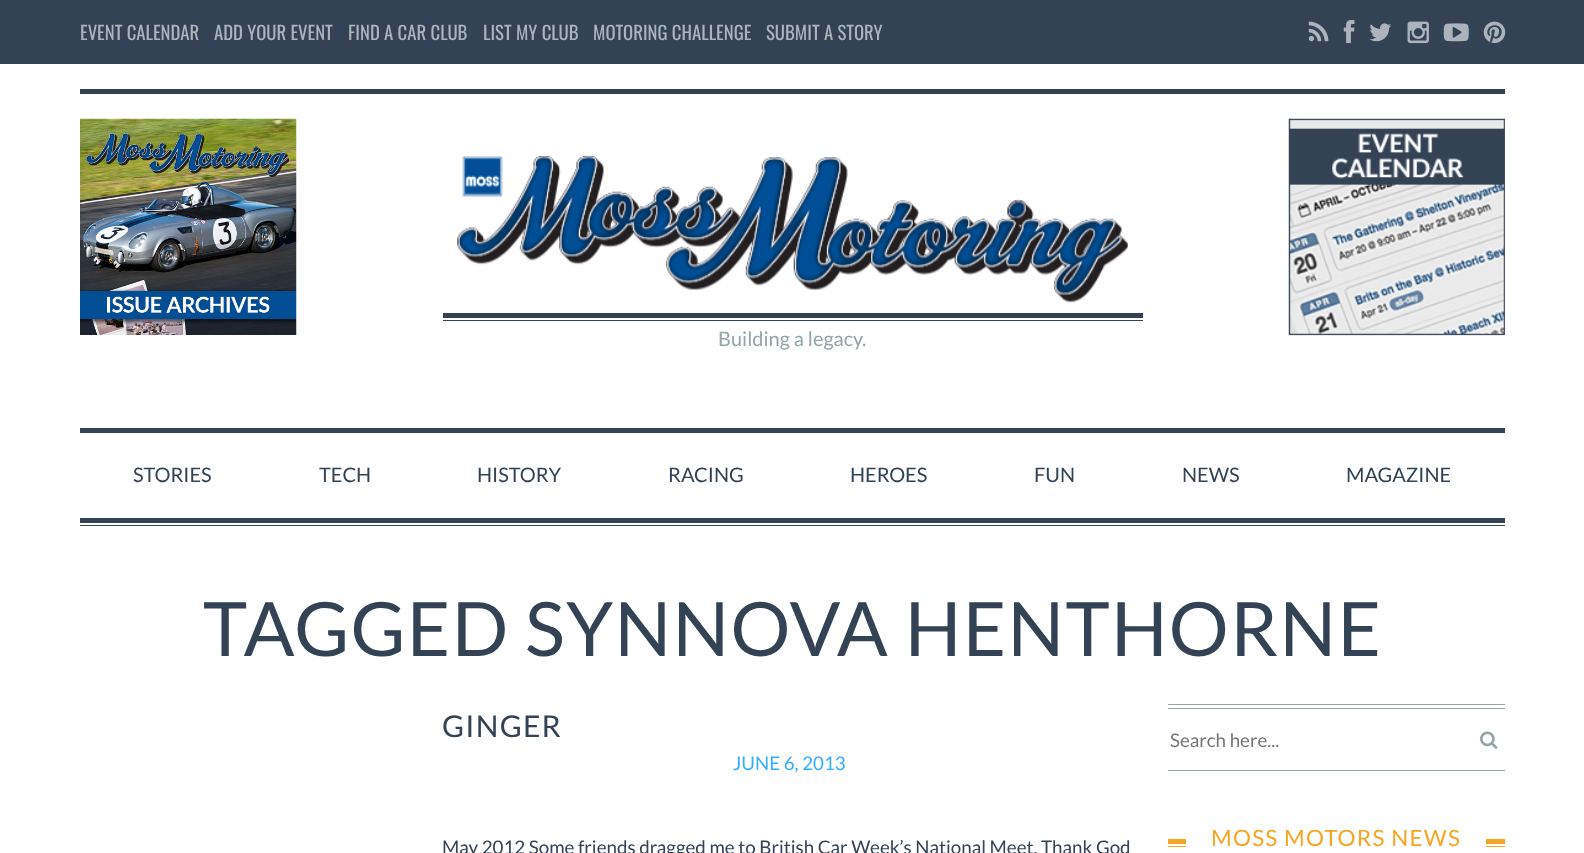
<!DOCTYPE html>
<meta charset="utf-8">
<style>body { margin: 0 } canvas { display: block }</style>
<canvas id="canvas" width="1584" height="853"></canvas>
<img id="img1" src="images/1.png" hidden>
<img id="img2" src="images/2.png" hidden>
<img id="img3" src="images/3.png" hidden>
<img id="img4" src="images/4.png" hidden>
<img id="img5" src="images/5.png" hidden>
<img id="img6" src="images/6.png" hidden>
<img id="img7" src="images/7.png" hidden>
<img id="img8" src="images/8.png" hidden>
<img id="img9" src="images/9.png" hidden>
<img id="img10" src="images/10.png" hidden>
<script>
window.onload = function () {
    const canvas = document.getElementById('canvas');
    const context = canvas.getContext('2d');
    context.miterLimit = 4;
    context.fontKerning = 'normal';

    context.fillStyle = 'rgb(255, 255, 255)';
    context.fillRect(0, 0, 1584, 853);
    context.fillStyle = 'rgb(51, 66, 85)';
    context.fillRect(0, 0, 1584, 64);
    context.drawImage(document.getElementById('img1'), 1308, 21, 21, 21);
    context.drawImage(document.getElementById('img2'), 1343, 20, 12, 24);
    context.drawImage(document.getElementById('img3'), 1369, 23, 23, 19);
    context.drawImage(document.getElementById('img4'), 1407, 21, 22, 23);
    context.drawImage(document.getElementById('img5'), 1443, 23, 26, 19);
    context.drawImage(document.getElementById('img6'), 1483, 21, 23, 22);
    context.fillRect(80, 89, 1425, 5);
    context.fillRect(80, 428, 1425, 5);
    context.drawImage(document.getElementById('img7'), 80, 118, 217, 217);
    context.drawImage(document.getElementById('img8'), 1288, 118, 217, 218);
    context.fillRect(443, 313, 700, 5);
    context.drawImage(document.getElementById('img9'), 457, 155, 671, 148);
    context.fillRect(443, 320, 700, 1);
    context.fillRect(80, 525, 1425, 1);
    context.fillRect(80, 518, 1425, 5);
    context.fillStyle = 'rgb(149, 165, 166)';
    context.fillRect(1168, 704, 337, 1);
    context.fillRect(1168, 708, 337, 1);
    context.fillRect(1168, 770, 337, 1);
    context.drawImage(document.getElementById('img10'), 1480, 731, 18, 18);
    context.fillStyle = 'rgb(245, 166, 35)';
    context.fillRect(1168, 839, 337, 5);
    context.fillRect(1168, 846, 337, 1);
    context.fillStyle = 'rgb(255, 255, 255)';
    context.fillRect(1186, 839, 300, 8);
    context.font = '18.75px Oswald';
    context.fillStyle = 'rgb(173, 179, 187)';
    context.fillText('EVENT CALENDAR', 80, 40);
    context.fillText('ADD YOUR EVENT', 214, 40);
    context.fillText('FIND A CAR CLUB', 348, 40);
    context.fillText('LIST MY CLUB', 483, 40);
    context.fillText('MOTORING CHALLENGE', 593, 40);
    context.fillText('SUBMIT A STORY', 766, 40);
    context.font = '20px Lato';
    context.fillStyle = 'rgb(149, 165, 166)';
    context.fillText('Building a legacy.', 718, 346);
    context.fillStyle = 'rgb(51, 66, 85)';
    context.fillText('STORIES', 133, 482);
    context.fillText('TECH', 319, 482);
    context.fillText('HISTORY', 477, 482);
    context.fillText('RACING', 668, 482);
    context.fillText('HEROES', 850, 482);
    context.fillText('FUN', 1034, 482);
    context.fillText('NEWS', 1182, 482);
    context.fillText('MAGAZINE', 1346, 482);
    context.letterSpacing = '1.25px';
    context.font = '75px Lato';
    context.fillText('TAGGED SYNNOVA HENTHORNE', 203, 656);
    context.font = '30px Lato';
    context.fillText('GINGER', 442, 737);
    context.letterSpacing = '0px';
    context.font = '18.75px Lato';
    context.fillStyle = 'rgb(50, 175, 255)';
    context.fillText('JUNE 6, 2013', 733, 770);
    context.fillStyle = 'rgb(51, 66, 85)';
    context.fillText('May 2012 Some friends dragged me to British Car Week’s National Meet. Thank God', 442, 854);
    context.fillStyle = 'rgb(117, 117, 117)';
    context.fillText('Search here...', 1170, 747);
    context.letterSpacing = '1.25px';
    context.font = '22.5px Lato';
    context.fillStyle = 'rgb(245, 166, 35)';
    context.fillText('MOSS MOTORS NEWS', 1211, 846);
};
</script>
